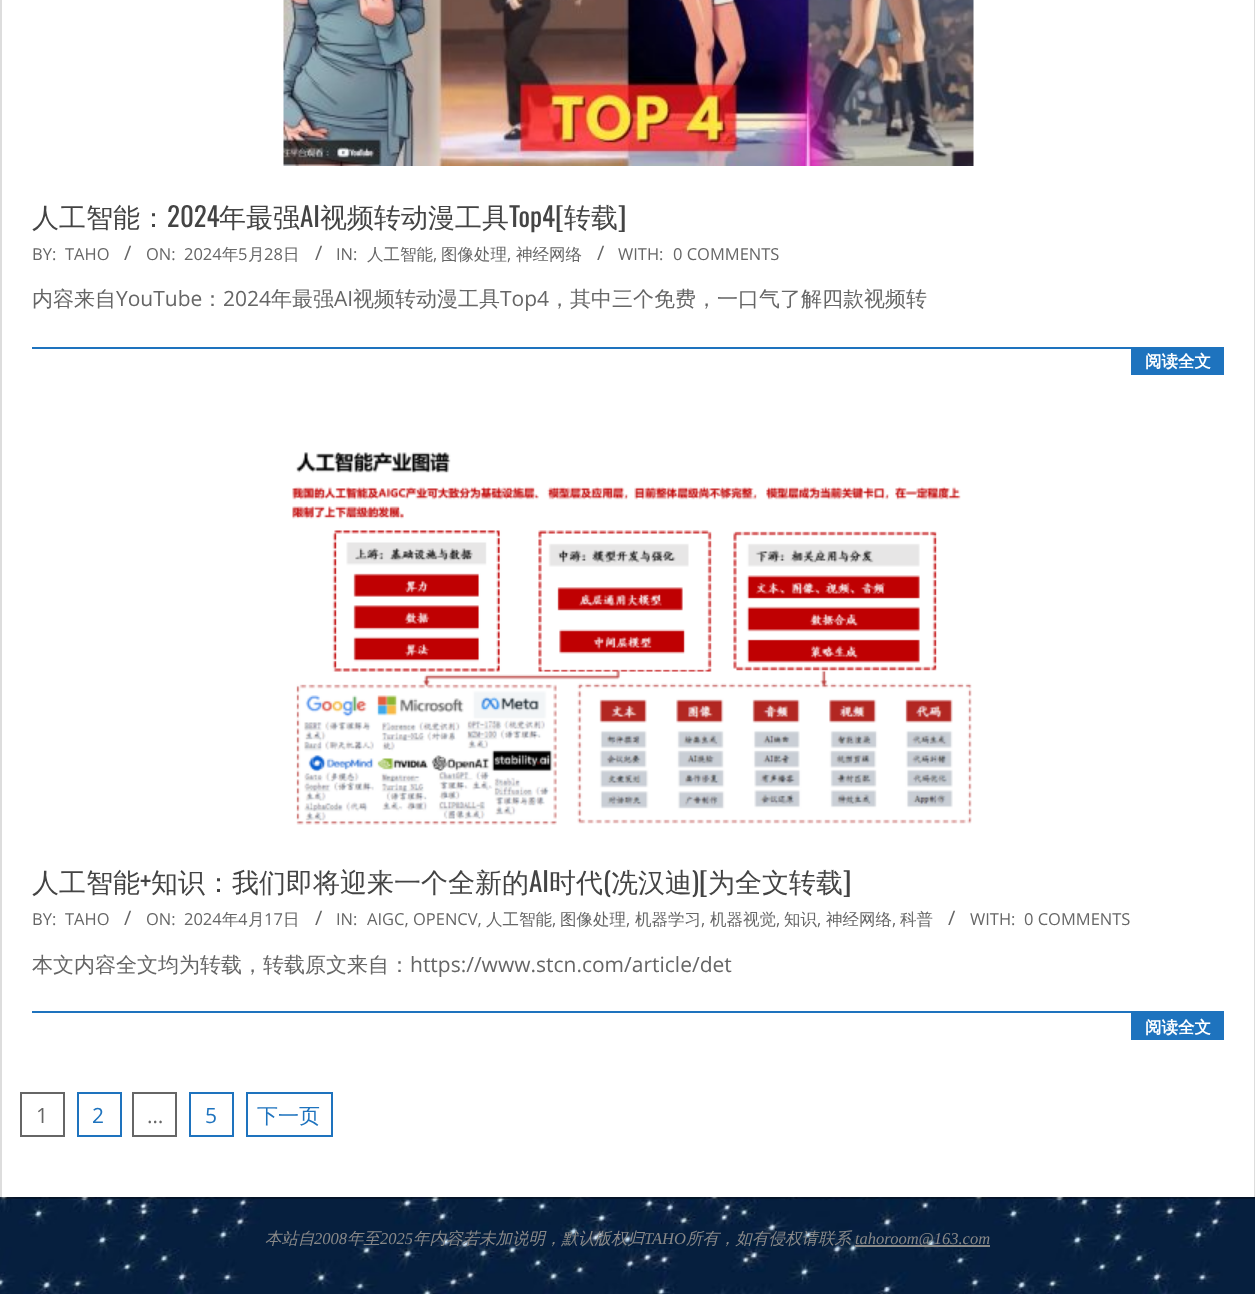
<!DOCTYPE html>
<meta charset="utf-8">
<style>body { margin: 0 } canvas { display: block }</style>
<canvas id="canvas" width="1255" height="1294"></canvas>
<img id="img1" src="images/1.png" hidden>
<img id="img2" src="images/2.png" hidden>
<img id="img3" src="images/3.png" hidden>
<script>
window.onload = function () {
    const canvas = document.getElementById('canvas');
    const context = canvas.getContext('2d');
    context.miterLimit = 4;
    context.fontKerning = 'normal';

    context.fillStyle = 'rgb(255, 255, 255)';
    context.fillRect(0, 0, 1255, 1294);
    context.drawImage(document.getElementById('img1'), 0, 1197, 1255, 97);
    context.fillStyle = 'rgb(221, 221, 221)';
    context.fillRect(1254, 0, 1, 1197);
    context.fillRect(0, 0, 2, 1197);
    context.drawImage(document.getElementById('img2'), 283, 0, 691, 166);
    context.fillStyle = 'rgb(30, 115, 190)';
    context.fillRect(32, 347, 1192, 2);
    context.fillRect(1131, 349, 93, 26);
    context.drawImage(document.getElementById('img3'), 292, 452, 680, 373);
    context.fillRect(32, 1011, 1192, 2);
    context.fillRect(1131, 1013, 93, 27);
    context.strokeStyle = 'rgb(102, 102, 102)';
    context.lineWidth = 2;
    context.strokeRect(21, 1093, 43, 43);
    context.strokeStyle = 'rgb(30, 115, 190)';
    context.strokeRect(78, 1093, 43, 43);
    context.strokeStyle = 'rgb(102, 102, 102)';
    context.strokeRect(133, 1093, 43, 43);
    context.strokeStyle = 'rgb(30, 115, 190)';
    context.strokeRect(190, 1093, 43, 43);
    context.strokeRect(247, 1093, 85, 43);
    context.fillStyle = 'rgba(0, 0, 0, 0.33)';
    context.fillRect(0, 1197, 1255, 2);
    context.fillStyle = 'rgb(136, 136, 136)';
    context.fillRect(855, 1245, 135, 2);
    context.font = '500 27px WenQuanYi Zen Hei';
    context.fillStyle = 'rgb(68, 68, 68)';
    context.fillText('人工智能：', 32, 227);
    context.font = '27px Oswald';
    context.fillText('2024', 167, 227);
    context.font = '500 27px WenQuanYi Zen Hei';
    context.fillText('年最强', 219, 227);
    context.font = '27px Oswald';
    context.fillText('AI', 300, 227);
    context.font = '500 27px WenQuanYi Zen Hei';
    context.fillText('视频转动漫工具', 320, 227);
    context.font = '27px Oswald';
    context.fillText('Top4[', 509, 227);
    context.font = '500 27px WenQuanYi Zen Hei';
    context.fillText('转载', 564, 227);
    context.font = '27px Oswald';
    context.fillText(']', 618, 227);
    context.font = '16.5px Open Sans';
    context.fillStyle = 'rgb(102, 102, 102)';
    context.fillText('BY:', 32, 260);
    context.fillText('TAHO', 65, 260);
    context.font = '20px Open Sans';
    context.fillText('/', 124, 260);
    context.font = '16.5px Open Sans';
    context.fillText('ON:', 146, 260);
    context.fillText('2024', 184, 260);
    context.font = '500 16.5px WenQuanYi Zen Hei';
    context.fillText('年', 222, 260);
    context.font = '16.5px Open Sans';
    context.fillText('5', 238, 260);
    context.font = '500 16.5px WenQuanYi Zen Hei';
    context.fillText('月', 248, 260);
    context.font = '16.5px Open Sans';
    context.fillText('28', 264, 260);
    context.font = '500 16.5px WenQuanYi Zen Hei';
    context.fillText('日', 283, 260);
    context.font = '20px Open Sans';
    context.fillText('/', 315, 260);
    context.font = '16.5px Open Sans';
    context.fillText('IN:', 336, 260);
    context.font = '500 16.5px WenQuanYi Zen Hei';
    context.fillText('人工智能', 367, 260);
    context.font = '16.5px Open Sans';
    context.fillText(',', 433, 260);
    context.font = '500 16.5px WenQuanYi Zen Hei';
    context.fillText('图像处理', 441, 260);
    context.font = '16.5px Open Sans';
    context.fillText(',', 507, 260);
    context.font = '500 16.5px WenQuanYi Zen Hei';
    context.fillText('神经网络', 516, 260);
    context.font = '20px Open Sans';
    context.fillText('/', 597, 260);
    context.font = '16.5px Open Sans';
    context.fillText('WITH:', 618, 260);
    context.fillText('0 COMMENTS', 673, 260);
    context.font = '500 21px WenQuanYi Zen Hei';
    context.fillText('内容来自', 32, 306);
    context.font = '21px Open Sans';
    context.fillText('YouTube', 116, 306);
    context.font = '500 21px WenQuanYi Zen Hei';
    context.fillText('：', 202, 306);
    context.font = '21px Open Sans';
    context.fillText('2024', 223, 306);
    context.font = '500 21px WenQuanYi Zen Hei';
    context.fillText('年最强', 271, 306);
    context.font = '21px Open Sans';
    context.fillText('AI', 334, 306);
    context.font = '500 21px WenQuanYi Zen Hei';
    context.fillText('视频转动漫工具', 353, 306);
    context.font = '21px Open Sans';
    context.fillText('Top4', 500, 306);
    context.font = '500 21px WenQuanYi Zen Hei';
    context.fillText('，其中三个免费，一口气了解四款视频转', 549, 306);
    context.font = 'bold 16.5px WenQuanYi Zen Hei';
    context.fillStyle = 'rgb(255, 255, 255)';
    context.fillText('阅读全文', 1145, 367);
    context.font = '500 27px WenQuanYi Zen Hei';
    context.fillStyle = 'rgb(68, 68, 68)';
    context.fillText('人工智能', 32, 892);
    context.fillText('知识：我们即将迎来一个全新的', 151, 892);
    context.fillText('时代 冼汉迪', 549, 892);
    context.font = '27px Oswald';
    context.fillText('+', 140, 892);
    context.fillText('AI', 529, 892);
    context.fillText('(', 603, 892);
    context.fillText(')[', 692, 892);
    context.font = '500 27px WenQuanYi Zen Hei';
    context.fillText('为全文转载', 708, 892);
    context.font = '27px Oswald';
    context.fillText(']', 843, 892);
    context.font = '16.5px Open Sans';
    context.fillStyle = 'rgb(102, 102, 102)';
    context.fillText('BY:', 32, 925);
    context.fillText('TAHO', 65, 925);
    context.font = '20px Open Sans';
    context.fillText('/', 124, 925);
    context.font = '16.5px Open Sans';
    context.fillText('ON:', 146, 925);
    context.fillText('2024', 184, 925);
    context.font = '500 16.5px WenQuanYi Zen Hei';
    context.fillText('年', 222, 925);
    context.font = '16.5px Open Sans';
    context.fillText('4', 238, 925);
    context.font = '500 16.5px WenQuanYi Zen Hei';
    context.fillText('月', 248, 925);
    context.font = '16.5px Open Sans';
    context.fillText('17', 264, 925);
    context.font = '500 16.5px WenQuanYi Zen Hei';
    context.fillText('日', 283, 925);
    context.font = '20px Open Sans';
    context.fillText('/', 315, 925);
    context.font = '16.5px Open Sans';
    context.fillText('IN:', 336, 925);
    context.fillText('AIGC, OPENCV,', 367, 925);
    context.font = '500 16.5px WenQuanYi Zen Hei';
    context.fillText('人工智能', 486, 925);
    context.font = '16.5px Open Sans';
    context.fillText(',', 552, 925);
    context.font = '500 16.5px WenQuanYi Zen Hei';
    context.fillText('图像处理', 560, 925);
    context.font = '16.5px Open Sans';
    context.fillText(',', 626, 925);
    context.font = '500 16.5px WenQuanYi Zen Hei';
    context.fillText('机器学习', 635, 925);
    context.font = '16.5px Open Sans';
    context.fillText(',', 701, 925);
    context.font = '500 16.5px WenQuanYi Zen Hei';
    context.fillText('机器视觉', 710, 925);
    context.font = '16.5px Open Sans';
    context.fillText(',', 776, 925);
    context.font = '500 16.5px WenQuanYi Zen Hei';
    context.fillText('知识', 784, 925);
    context.font = '16.5px Open Sans';
    context.fillText(',', 817, 925);
    context.font = '500 16.5px WenQuanYi Zen Hei';
    context.fillText('神经网络', 826, 925);
    context.font = '16.5px Open Sans';
    context.fillText(',', 892, 925);
    context.font = '500 16.5px WenQuanYi Zen Hei';
    context.fillText('科普', 900, 925);
    context.font = '20px Open Sans';
    context.fillText('/', 948, 925);
    context.font = '16.5px Open Sans';
    context.fillText('WITH:', 970, 925);
    context.fillText('0 COMMENTS', 1024, 925);
    context.font = '500 21px WenQuanYi Zen Hei';
    context.fillText('本文内容全文均为转载，转载原文来自：', 32, 972);
    context.font = '21px Open Sans';
    context.fillText('https://www.stcn.com/article/det', 410, 972);
    context.font = 'bold 16.5px WenQuanYi Zen Hei';
    context.fillStyle = 'rgb(255, 255, 255)';
    context.fillText('阅读全文', 1145, 1033);
    context.font = '21px Open Sans';
    context.fillStyle = 'rgb(102, 102, 102)';
    context.fillText('1', 36, 1123);
    context.fillStyle = 'rgb(30, 115, 190)';
    context.fillText('2', 92, 1123);
    context.fillStyle = 'rgb(102, 102, 102)';
    context.fillText('…', 147, 1123);
    context.fillStyle = 'rgb(30, 115, 190)';
    context.fillText('5', 205, 1123);
    context.font = '500 21px WenQuanYi Zen Hei';
    context.fillText('下一页', 257, 1123);
    context.font = 'italic 500 16.5px WenQuanYi Zen Hei';
    context.fillStyle = 'rgb(136, 136, 136)';
    context.fillText('本站自', 265, 1244);
    context.font = 'italic 16.5px Liberation Serif';
    context.fillText('2008', 314, 1244);
    context.font = 'italic 500 16.5px WenQuanYi Zen Hei';
    context.fillText('年至', 347, 1244);
    context.font = 'italic 16.5px Liberation Serif';
    context.fillText('2025', 380, 1244);
    context.font = 'italic 500 16.5px WenQuanYi Zen Hei';
    context.fillText('年内容若未加说明，默认版权归', 413, 1244);
    context.font = 'italic 16.5px Liberation Serif';
    context.fillText('TAHO', 644, 1244);
    context.font = 'italic 500 16.5px WenQuanYi Zen Hei';
    context.fillText('所有，如有侵权请联系', 686, 1244);
    context.font = 'italic 16.5px Liberation Serif';
    context.fillText('tahoroom@163.com', 855, 1244);
};
</script>
